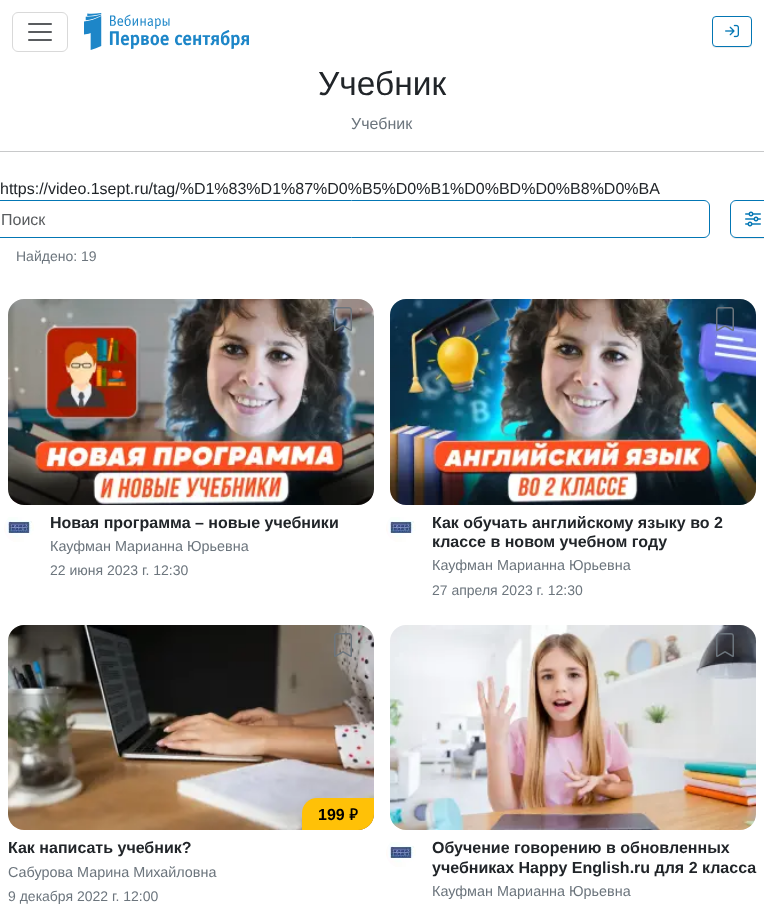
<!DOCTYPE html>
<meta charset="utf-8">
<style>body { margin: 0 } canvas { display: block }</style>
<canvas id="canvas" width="764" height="913"></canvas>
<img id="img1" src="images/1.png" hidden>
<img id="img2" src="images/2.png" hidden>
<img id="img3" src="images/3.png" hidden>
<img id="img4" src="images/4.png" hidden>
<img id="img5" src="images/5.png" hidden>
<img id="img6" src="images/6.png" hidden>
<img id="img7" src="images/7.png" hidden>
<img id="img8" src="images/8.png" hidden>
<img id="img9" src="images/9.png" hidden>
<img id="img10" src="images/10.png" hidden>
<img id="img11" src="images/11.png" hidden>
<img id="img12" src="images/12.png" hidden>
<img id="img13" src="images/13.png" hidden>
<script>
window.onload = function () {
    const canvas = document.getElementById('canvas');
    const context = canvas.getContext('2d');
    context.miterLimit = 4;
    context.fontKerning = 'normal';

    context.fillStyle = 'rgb(255, 255, 255)';
    context.fillRect(0, 0, 764, 913);
    context.beginPath();
    context.roundRect(12.5, 12.5, 55, 39, 5.5);
    context.strokeStyle = 'rgb(217, 217, 217)';
    context.stroke();
    context.drawImage(document.getElementById('img1'), 28, 23, 24, 18);
    context.drawImage(document.getElementById('img2'), 84, 13, 165, 37);
    context.save();
    context.beginPath();
    context.moveTo(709, 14);
    context.lineTo(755, 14);
    context.lineTo(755, 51);
    context.lineTo(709, 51);
    context.closePath();
    context.moveTo(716, 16);
    context.lineTo(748, 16);
    context.bezierCurveTo(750, 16, 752, 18, 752, 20);
    context.lineTo(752, 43);
    context.bezierCurveTo(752, 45, 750, 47, 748, 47);
    context.lineTo(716, 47);
    context.bezierCurveTo(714, 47, 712, 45, 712, 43);
    context.lineTo(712, 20);
    context.bezierCurveTo(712, 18, 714, 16, 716, 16);
    context.closePath();
    context.clip('evenodd');
    context.fillStyle = 'rgba(0, 0, 0, 0.07)';
    context.filter = 'blur(0.5px)';
    context.beginPath();
    context.roundRect(712, 17, 40, 31, 4);
    context.fill();
    context.filter = 'none';
    context.restore();
    context.beginPath();
    context.roundRect(712.5, 16.5, 39, 30, 3.5);
    context.strokeStyle = 'rgb(3, 118, 180)';
    context.stroke();
    context.drawImage(document.getElementById('img3'), 725, 24, 14, 14);
    context.fillStyle = 'rgb(200, 201, 202)';
    context.fillRect(0, 151, 764, 1);
    context.beginPath();
    context.roundRect(-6.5, 200.5, 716, 37, 5.5);
    context.stroke();
    context.save();
    context.beginPath();
    context.moveTo(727, 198);
    context.lineTo(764, 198);
    context.lineTo(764, 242);
    context.lineTo(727, 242);
    context.closePath();
    context.moveTo(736, 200);
    context.lineTo(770, 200);
    context.bezierCurveTo(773.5, 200, 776, 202.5, 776, 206);
    context.lineTo(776, 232);
    context.bezierCurveTo(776, 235.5, 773.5, 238, 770, 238);
    context.lineTo(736, 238);
    context.bezierCurveTo(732.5, 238, 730, 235.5, 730, 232);
    context.lineTo(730, 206);
    context.bezierCurveTo(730, 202.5, 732.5, 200, 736, 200);
    context.closePath();
    context.clip('evenodd');
    context.fillStyle = 'rgba(0, 0, 0, 0.07)';
    context.filter = 'blur(0.5px)';
    context.beginPath();
    context.roundRect(730, 201, 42, 38, 6);
    context.fill();
    context.filter = 'none';
    context.restore();
    context.beginPath();
    context.roundRect(730.5, 200.5, 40, 37, 5.5);
    context.stroke();
    context.drawImage(document.getElementById('img4'), 745, 211, 16, 16);
    context.drawImage(document.getElementById('img5'), 8, 299, 366, 206);
    context.drawImage(document.getElementById('img6'), 334, 307, 18, 24);
    context.drawImage(document.getElementById('img7'), 4, 517, 30, 25);
    context.drawImage(document.getElementById('img8'), 390, 299, 366, 206);
    context.drawImage(document.getElementById('img9'), 716, 307, 18, 24);
    context.drawImage(document.getElementById('img7'), 386, 517, 30, 25);
    context.drawImage(document.getElementById('img10'), 8, 625, 366, 205);
    context.drawImage(document.getElementById('img11'), 334, 633, 18, 24);
    context.fillStyle = 'rgb(255, 193, 7)';
    context.beginPath();
    context.roundRect(302, 798, 72, 32, [15, 0, 16, 0]);
    context.fill();
    context.drawImage(document.getElementById('img12'), 390, 625, 366, 205);
    context.drawImage(document.getElementById('img13'), 716, 633, 18, 24);
    context.drawImage(document.getElementById('img7'), 386, 842, 30, 25);
    context.font = '33.5px Liberation Sans';
    context.fillStyle = 'rgb(33, 37, 41)';
    context.fillText('Учебник', 318, 95);
    context.font = '16px Liberation Sans';
    context.fillStyle = 'rgb(108, 117, 125)';
    context.fillText('Учебник', 351, 129);
    context.fillStyle = 'rgb(33, 37, 41)';
    context.fillText('https://video.1sept.ru/tag/%D1%83%D1%87%D0%B5%D0%B1%D0%BD%D0%B8%D0%BA', 0, 194);
    context.fillStyle = 'rgb(89, 92, 95)';
    context.fillText('Поиск', 1, 225);
    context.font = '14px Liberation Sans';
    context.fillStyle = 'rgb(108, 117, 125)';
    context.fillText('Найдено: 19', 16, 261);
    context.font = 'bold 16px Liberation Sans';
    context.fillStyle = 'rgb(33, 37, 41)';
    context.fillText('Новая программа – новые учебники', 50, 528);
    context.font = '14.4px Liberation Sans';
    context.fillStyle = 'rgb(108, 117, 125)';
    context.fillText('Кауфман Марианна Юрьевна', 50, 551);
    context.font = '14px Liberation Sans';
    context.fillText('22 июня 2023 г. 12:30', 50, 575);
    context.font = 'bold 16px Liberation Sans';
    context.fillStyle = 'rgb(33, 37, 41)';
    context.fillText('Как обучать английскому языку во 2', 432, 528);
    context.fillText('классе в новом учебном году', 432, 547);
    context.font = '14.4px Liberation Sans';
    context.fillStyle = 'rgb(108, 117, 125)';
    context.fillText('Кауфман Марианна Юрьевна', 432, 570);
    context.font = '14px Liberation Sans';
    context.fillText('27 апреля 2023 г. 12:30', 432, 595);
    context.font = 'bold 16px Liberation Sans';
    context.fillStyle = 'rgb(0, 0, 0)';
    context.fillText('199', 318, 820);
    context.font = 'bold 16px PT Sans';
    context.fillText('₽', 349, 820);
    context.font = 'bold 16px Liberation Sans';
    context.fillStyle = 'rgb(33, 37, 41)';
    context.fillText('Как написать учебник?', 8, 853);
    context.font = '14.4px Liberation Sans';
    context.fillStyle = 'rgb(108, 117, 125)';
    context.fillText('Сабурова Марина Михайловна', 8, 877);
    context.font = '14px Liberation Sans';
    context.fillText('9 декабря 2022 г. 12:00', 8, 901);
    context.font = 'bold 16px Liberation Sans';
    context.fillStyle = 'rgb(33, 37, 41)';
    context.fillText('Обучение говорению в обновленных', 432, 853);
    context.fillText('учебниках Happy English.ru для 2 класса', 432, 873);
    context.font = '14.4px Liberation Sans';
    context.fillStyle = 'rgb(108, 117, 125)';
    context.fillText('Кауфман Марианна Юрьевна', 432, 896);
};
</script>
